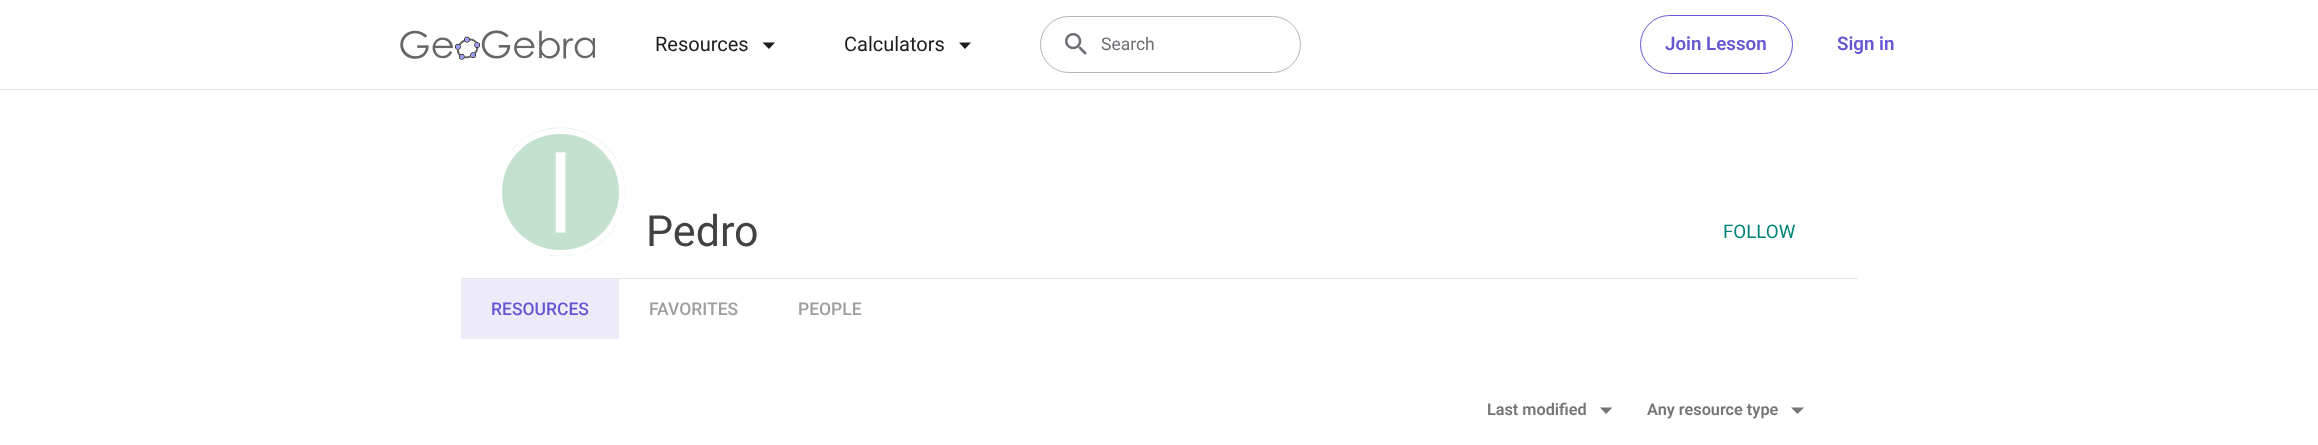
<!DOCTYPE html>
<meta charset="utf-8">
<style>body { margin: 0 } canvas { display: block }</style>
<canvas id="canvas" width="2318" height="445"></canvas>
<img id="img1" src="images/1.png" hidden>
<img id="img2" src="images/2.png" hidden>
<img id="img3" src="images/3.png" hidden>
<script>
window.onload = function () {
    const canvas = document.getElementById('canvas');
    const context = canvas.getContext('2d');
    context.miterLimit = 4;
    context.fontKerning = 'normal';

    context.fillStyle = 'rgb(255, 255, 255)';
    context.fillRect(0, 0, 2318, 445);
    context.fillStyle = 'rgb(230, 230, 235)';
    context.fillRect(0, 89, 2318, 1);
    context.drawImage(document.getElementById('img1'), 400, 30, 195, 30);
    context.fillStyle = 'rgb(28, 28, 31)';
    context.beginPath();
    context.moveTo(762.5, 42.5);
    context.lineTo(769, 49);
    context.lineTo(775, 42.5);
    context.closePath();
    context.fill();
    context.beginPath();
    context.moveTo(959, 42.5);
    context.lineTo(965, 49);
    context.lineTo(971, 42.5);
    context.closePath();
    context.fill();
    context.beginPath();
    context.roundRect(1040.5, 16.5, 260, 56, 28);
    context.strokeStyle = 'rgb(180, 179, 186)';
    context.stroke();
    context.drawImage(document.getElementById('img2'), 1065, 33, 22, 22);
    context.beginPath();
    context.roundRect(1640.5, 15.5, 152, 58, 29);
    context.strokeStyle = 'rgb(101, 87, 210)';
    context.stroke();
    context.fillStyle = 'rgb(230, 230, 235)';
    context.fillRect(461, 278, 1397, 1);
    context.fillStyle = 'rgb(245, 245, 245)';
    context.beginPath();
    context.roundRect(496, 128, 129, 128, 64);
    context.fill();
    context.drawImage(document.getElementById('img3'), 496, 127, 129, 129);
    context.beginPath();
    context.roundRect(499, 131, 123, 122, 61);
    context.strokeStyle = 'rgb(255, 255, 255)';
    context.lineWidth = 6;
    context.stroke();
    context.fillStyle = 'rgb(237, 235, 250)';
    context.fillRect(461, 279, 158, 60);
    context.fillStyle = 'rgb(117, 117, 117)';
    context.beginPath();
    context.moveTo(1600, 407.5);
    context.lineTo(1606, 414);
    context.lineTo(1612.5, 407.5);
    context.closePath();
    context.fill();
    context.beginPath();
    context.moveTo(1791, 407.5);
    context.lineTo(1797.5, 414);
    context.lineTo(1804, 407.5);
    context.closePath();
    context.fill();
    context.font = '20px Roboto';
    context.fillStyle = 'rgb(28, 28, 31)';
    context.fillText('Resources', 655, 51);
    context.fillText('Calculators', 844, 51);
    context.font = '17.5px Roboto';
    context.fillStyle = 'rgb(110, 109, 115)';
    context.fillText('Search', 1101, 50);
    context.font = '600 18.75px Roboto';
    context.fillStyle = 'rgb(101, 87, 210)';
    context.fillText('Join Lesson', 1665, 50);
    context.fillText('Sign in', 1837, 50);
    context.font = '43px Roboto';
    context.fillStyle = 'rgb(66, 66, 66)';
    context.fillText('Pedro', 646, 246);
    context.font = '18.75px Roboto';
    context.fillStyle = 'rgb(0, 132, 117)';
    context.fillText('FOLLOW', 1723, 238);
    context.font = '500 17.5px Roboto';
    context.fillStyle = 'rgb(101, 87, 210)';
    context.fillText('RESOURCES', 491, 315);
    context.fillStyle = 'rgb(158, 158, 158)';
    context.fillText('FAVORITES', 649, 315);
    context.fillText('PEOPLE', 798, 315);
    context.font = '600 16.25px Roboto';
    context.fillStyle = 'rgb(117, 117, 117)';
    context.fillText('Last modified', 1487, 415);
    context.fillText('Any resource type', 1647, 415);
};
</script>
